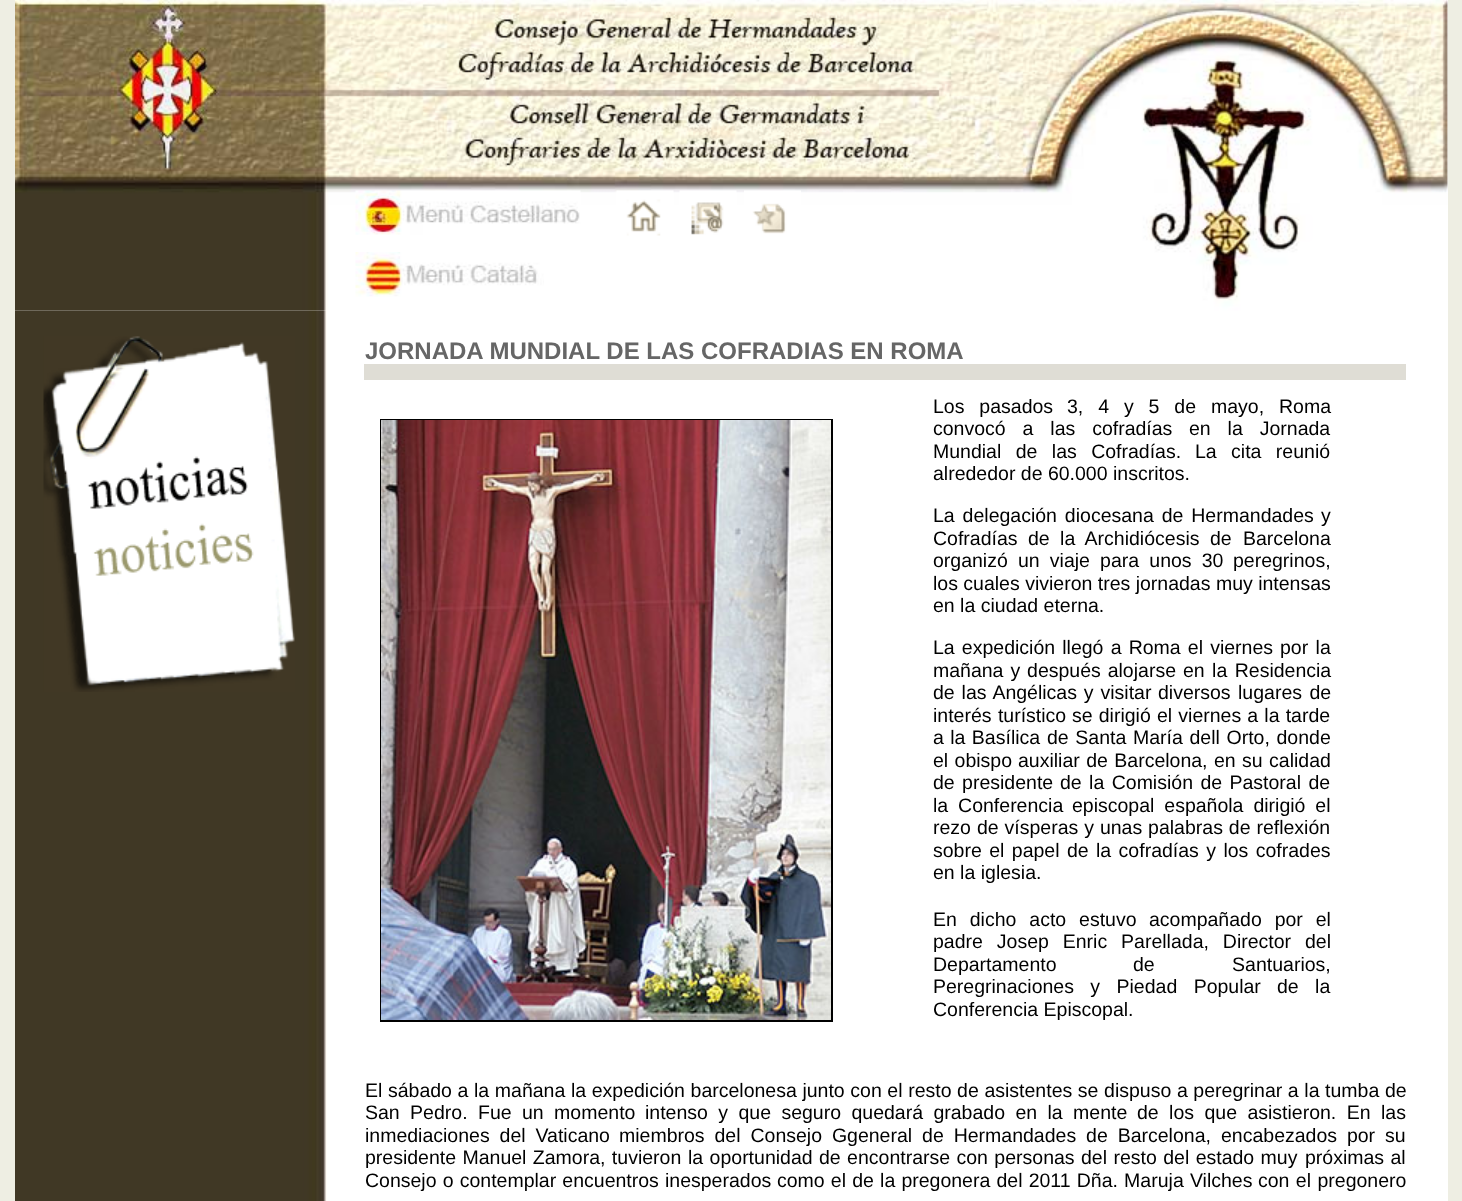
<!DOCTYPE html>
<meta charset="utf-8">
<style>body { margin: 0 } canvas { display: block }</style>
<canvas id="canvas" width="1462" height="1201"></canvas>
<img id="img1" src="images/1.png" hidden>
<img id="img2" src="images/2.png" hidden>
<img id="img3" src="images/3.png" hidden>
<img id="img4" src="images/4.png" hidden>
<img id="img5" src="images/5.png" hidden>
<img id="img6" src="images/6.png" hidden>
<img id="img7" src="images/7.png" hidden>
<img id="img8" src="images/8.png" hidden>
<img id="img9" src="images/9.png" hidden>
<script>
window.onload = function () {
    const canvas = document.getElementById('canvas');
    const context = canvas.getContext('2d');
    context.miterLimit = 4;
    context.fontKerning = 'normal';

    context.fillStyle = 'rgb(238, 238, 227)';
    context.fillRect(0, 0, 1462, 1201);
    context.fillStyle = 'rgb(255, 255, 255)';
    context.fillRect(15, 0, 1433, 1201);
    context.drawImage(document.getElementById('img1'), 15, 0, 1433, 311);
    context.drawImage(document.getElementById('img2'), 355, 190, 226, 45);
    context.drawImage(document.getElementById('img3'), 616, 190, 58, 46);
    context.drawImage(document.getElementById('img4'), 679, 190, 58, 45);
    context.drawImage(document.getElementById('img5'), 744, 190, 57, 44);
    context.drawImage(document.getElementById('img6'), 355, 252, 189, 45);
    context.drawImage(document.getElementById('img7'), 15, 310, 312, 891);
    context.drawImage(document.getElementById('img8'), 43, 336, 252, 356);
    context.fillStyle = 'rgb(223, 221, 213)';
    context.fillRect(364, 364, 1042, 16);
    context.strokeStyle = 'rgb(0, 0, 0)';
    context.lineWidth = 2;
    context.strokeRect(381, 420, 451, 601);
    context.drawImage(document.getElementById('img9'), 381, 420, 450, 600);
    context.font = 'bold 24px Liberation Sans';
    context.fillStyle = 'rgb(102, 102, 102)';
    context.fillText('JORNADA MUNDIAL DE LAS COFRADIAS EN ROMA', 365, 359);
    context.wordSpacing = '9.5px';
    context.font = '19.5px Liberation Sans';
    context.fillStyle = 'rgb(0, 0, 0)';
    context.fillText('Los pasados', 933, 413);
    context.fillText('3, 4 y 5 de mayo, Roma', 1067, 413);
    context.wordSpacing = '11.5px';
    context.fillText('convocó a las cofradías', 933, 435);
    context.fillText('en la Jornada', 1189, 435);
    context.wordSpacing = '9px';
    context.fillText('Mundial de las Cofradías.', 933, 458);
    context.fillText('La cita reunió', 1195, 458);
    context.wordSpacing = '0px';
    context.fillText('alrededor de 60.000 inscritos.', 933, 480);
    context.wordSpacing = '2.5px';
    context.fillText('La delegación diocesana de Hermandades', 933, 522);
    context.wordSpacing = '0px';
    context.fillText('y', 1321, 522);
    context.wordSpacing = '5px';
    context.fillText('Cofradías de la Archidiócesis de', 933, 545);
    context.wordSpacing = '0px';
    context.fillText('Barcelona', 1243, 545);
    context.wordSpacing = '4.75px';
    context.fillText('organizó un viaje para unos 30', 933, 567);
    context.wordSpacing = '0px';
    context.fillText('peregrinos,', 1233, 567);
    context.fillText('los cuales vivieron tres jornadas muy intensas', 933, 590);
    context.fillText('en la ciudad eterna.', 933, 612);
    context.wordSpacing = '1.75px';
    context.fillText('La expedición llegó a Roma el viernes', 933, 654);
    context.wordSpacing = '2px';
    context.fillText('por la', 1280, 654);
    context.wordSpacing = '1.5px';
    context.fillText('mañana y después alojarse', 933, 677);
    context.wordSpacing = '2px';
    context.fillText('en la Residencia', 1183, 677);
    context.wordSpacing = '1.5px';
    context.fillText('de las Angélicas y visitar', 933, 699);
    context.wordSpacing = '2px';
    context.fillText('diversos lugares de', 1158, 699);
    context.wordSpacing = '1px';
    context.fillText('interés turístico', 933, 722);
    context.wordSpacing = '0.75px';
    context.fillText('se dirigió el viernes a la tarde', 1072, 722);
    context.wordSpacing = '1px';
    context.fillText('a la Basílica', 933, 744);
    context.wordSpacing = '1.25px';
    context.fillText('de Santa María dell Orto, donde', 1047, 744);
    context.wordSpacing = '1px';
    context.fillText('el obispo', 933, 767);
    context.fillText('auxiliar de Barcelona, en su calidad', 1018, 767);
    context.wordSpacing = '2px';
    context.fillText('de presidente', 933, 789);
    context.fillText('de la Comisión de Pastoral de', 1060, 789);
    context.wordSpacing = '4.5px';
    context.fillText('la Conferencia', 933, 812);
    context.fillText('episcopal española dirigió el', 1072, 812);
    context.wordSpacing = '0px';
    context.fillText('rezo', 933, 834);
    context.wordSpacing = '0.5px';
    context.fillText('de vísperas y unas palabras de reflexión', 977, 834);
    context.wordSpacing = '2px';
    context.fillText('sobre el papel de la cofradías y los cofrades', 933, 857);
    context.wordSpacing = '0px';
    context.fillText('en la iglesia.', 933, 879);
    context.wordSpacing = '7.5px';
    context.fillText('En dicho acto estuvo', 933, 926);
    context.fillText('acompañado por el', 1149, 926);
    context.wordSpacing = '8.5px';
    context.fillText('padre Josep Enric Parellada, Director del', 933, 948);
    context.wordSpacing = '0px';
    context.fillText('Departamento', 933, 971);
    context.wordSpacing = '72px';
    context.fillText('de Santuarios,', 1133, 971);
    context.wordSpacing = '11px';
    context.fillText('Peregrinaciones y Piedad Popular', 933, 993);
    context.fillText('de la', 1277, 993);
    context.wordSpacing = '0px';
    context.fillText('Conferencia Episcopal.', 933, 1016);
    context.wordSpacing = '0.2px';
    context.fillText('El sábado a la mañana la expedición barcelonesa junto con el resto de asistentes se dispuso a peregrinar a la tumba de', 365, 1097);
    context.wordSpacing = '5px';
    context.fillText('San Pedro. Fue un momento', 365, 1119);
    context.fillText('intenso y que seguro quedará grabado en la mente', 645, 1119);
    context.fillText('de los que asistieron. En las', 1137, 1119);
    context.wordSpacing = '4.5px';
    context.fillText('inmediaciones del Vaticano', 365, 1142);
    context.fillText('miembros del Consejo Ggeneral de Hermandades de Barcelona,', 619, 1142);
    context.fillText('encabezados por su', 1221, 1142);
    context.wordSpacing = '1px';
    context.fillText('presidente Manuel Zamora, tuvieron', 365, 1164);
    context.fillText('la oportunidad', 688, 1164);
    context.fillText('de encontrarse con personas del resto del estado muy', 819, 1164);
    context.fillText('próximas al', 1305, 1164);
    context.wordSpacing = '0.75px';
    context.fillText('Consejo o contemplar encuentros inesperados', 365, 1187);
    context.fillText('como el de la pregonera del 2011 Dña. Maruja Vilches', 777, 1187);
    context.wordSpacing = '1px';
    context.fillText('con el pregonero', 1258, 1187);
};
</script>
